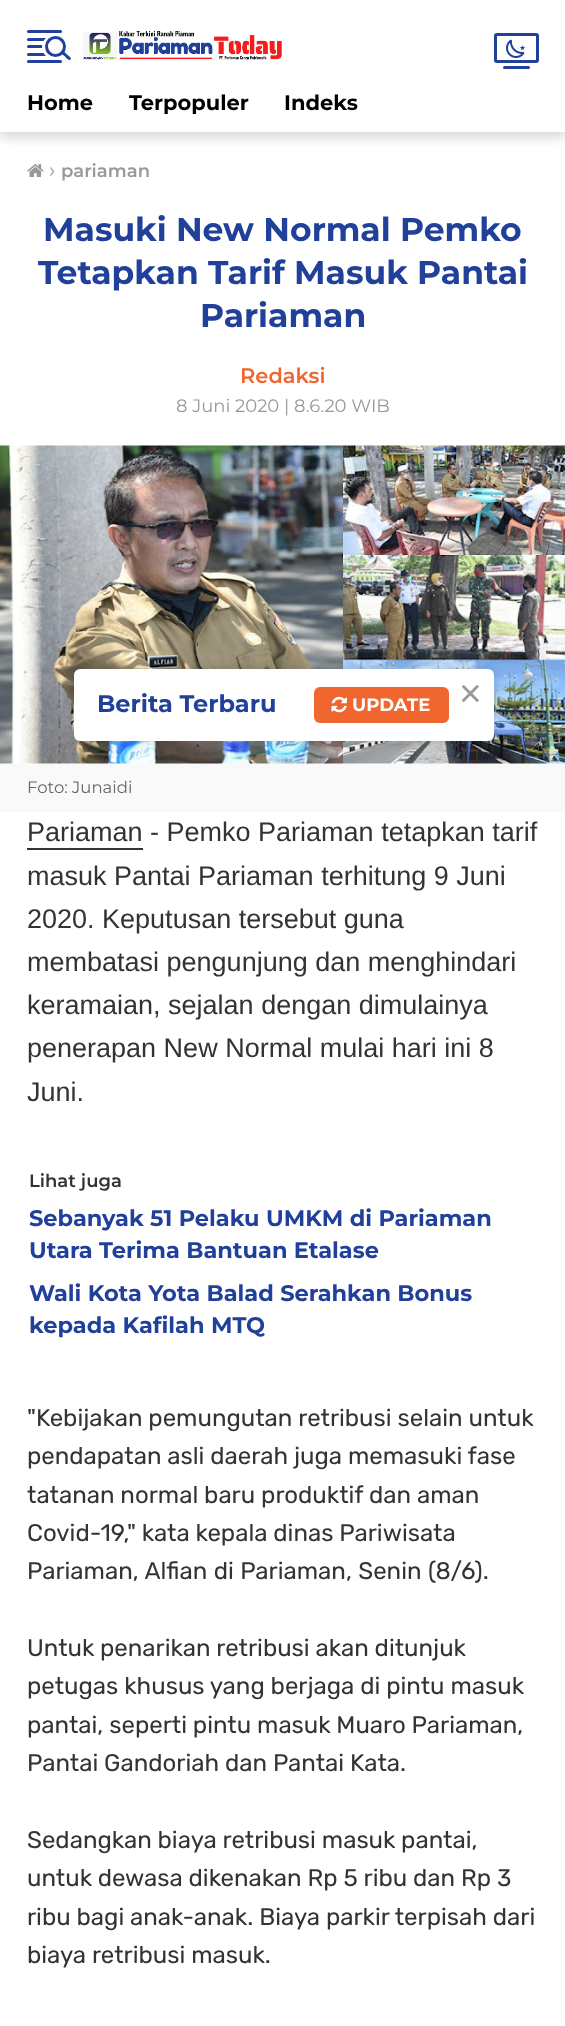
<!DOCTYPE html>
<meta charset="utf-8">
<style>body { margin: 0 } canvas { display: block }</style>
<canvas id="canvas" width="565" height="2026"></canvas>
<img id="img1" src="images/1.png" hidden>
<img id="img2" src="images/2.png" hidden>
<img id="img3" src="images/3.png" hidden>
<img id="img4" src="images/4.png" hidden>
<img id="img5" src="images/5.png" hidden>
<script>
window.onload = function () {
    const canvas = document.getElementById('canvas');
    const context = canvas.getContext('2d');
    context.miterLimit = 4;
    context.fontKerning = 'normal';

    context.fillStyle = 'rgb(255, 255, 255)';
    context.fillRect(0, 0, 565, 2026);
    context.save();
    context.beginPath();
    context.rect(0, 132, 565, 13);
    context.clip();
    context.fillStyle = 'rgba(0, 0, 0, 0.15)';
    context.filter = 'blur(6px)';
    context.beginPath();
    context.rect(0, 6, 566, 132);
    context.fill();
    context.filter = 'none';
    context.restore();
    context.drawImage(document.getElementById('img1'), 83, 30, 199, 30);
    context.beginPath();
    context.roundRect(495.5, 34.5, 42, 27, 1.5);
    context.strokeStyle = 'rgb(33, 64, 154)';
    context.lineWidth = 3;
    context.stroke();
    context.drawImage(document.getElementById('img2'), 506, 39, 20, 19);
    context.beginPath();
    context.roundRect(512, 36, 12, 11, 5.5);
    context.fill();
    context.fillStyle = 'rgb(33, 64, 154)';
    context.beginPath();
    context.roundRect(503, 66, 27, 3, 1.5);
    context.fill();
    context.beginPath();
    context.roundRect(27, 30, 35, 3, 1.5);
    context.fill();
    context.beginPath();
    context.roundRect(27, 38, 35, 3, 1.5);
    context.fill();
    context.beginPath();
    context.roundRect(27, 45, 35, 3, 1.5);
    context.fill();
    context.beginPath();
    context.roundRect(27, 53, 35, 3, 1.5);
    context.fill();
    context.fillStyle = 'rgb(255, 255, 255)';
    context.beginPath();
    context.arc(54, 47, 12, 0, 2 * Math.PI);
    context.fill();
    context.beginPath();
    context.arc(55.5, 46.5, 9, 0, 2 * Math.PI);
    context.stroke();
    context.fillStyle = 'rgb(33, 64, 154)';
    context.beginPath();
    context.moveTo(61.5, 51.5);
    context.bezierCurveTo(63, 49.5, 66, 53.5, 67, 54.5);
    context.bezierCurveTo(68, 55.5, 72, 57.5, 70.5, 59.5);
    context.bezierCurveTo(69, 61.5, 66, 57.5, 65, 56.5);
    context.bezierCurveTo(64, 55.5, 60, 53.5, 61.5, 51.5);
    context.closePath();
    context.fill();
    context.beginPath();
    context.roundRect(27, 60, 35, 3, 1.5);
    context.fill();
    context.drawImage(document.getElementById('img3'), 27, 164, 17, 13);
    context.drawImage(document.getElementById('img4'), 0, 445, 565, 319);
    context.fillStyle = 'rgb(249, 249, 249)';
    context.fillRect(0, 764, 565, 48);
    context.fillStyle = 'rgb(51, 51, 51)';
    context.fillRect(27, 848, 116, 2);
    context.fillStyle = 'rgba(0, 0, 0, 0.15)';
    context.filter = 'blur(6px)';
    context.beginPath();
    context.roundRect(74, 669, 420, 72, 6);
    context.fill();
    context.filter = 'none';
    context.fillStyle = 'rgb(255, 255, 255)';
    context.beginPath();
    context.roundRect(74, 669, 420, 72, 6);
    context.fill();
    context.fillStyle = 'rgb(239, 102, 47)';
    context.beginPath();
    context.roundRect(314, 687, 135, 36, 6);
    context.fill();
    context.drawImage(document.getElementById('img5'), 331, 696, 16, 17);
    context.font = 'bold 21px Montserrat';
    context.fillStyle = 'rgb(0, 0, 0)';
    context.fillText('Home', 27, 110);
    context.fillText('Terpopuler', 129, 110);
    context.fillText('Indeks', 284, 110);
    context.font = '21px Montserrat';
    context.fillStyle = 'rgb(153, 153, 153)';
    context.fillText('›', 49, 177);
    context.font = '600 18px Montserrat';
    context.fillText('pariaman', 61, 177);
    context.font = 'bold 33px Montserrat';
    context.fillStyle = 'rgb(33, 64, 154)';
    context.fillText('Masuki New Normal Pemko', 43, 241);
    context.fillText('Tetapkan Tarif Masuk Pantai', 38, 284);
    context.fillText('Pariaman', 200, 327);
    context.font = '600 21px Montserrat';
    context.fillStyle = 'rgb(239, 102, 47)';
    context.fillText('Redaksi', 240, 383);
    context.font = '18px Montserrat';
    context.fillStyle = 'rgb(153, 153, 153)';
    context.fillText('8 Juni 2020 | 8.6.20 WIB', 176, 412);
    context.font = '16.5px Montserrat';
    context.fillStyle = 'rgb(102, 102, 102)';
    context.fillText('Foto: Junaidi', 27, 793);
    context.font = '27px Liberation Sans';
    context.fillStyle = 'rgb(51, 51, 51)';
    context.fillText('Pariaman - Pemko Pariaman tetapkan tarif', 27, 841);
    context.fillText('masuk Pantai Pariaman terhitung 9 Juni', 27, 885);
    context.fillText('2020. Keputusan tersebut guna', 27, 928);
    context.fillText('membatasi pengunjung dan menghindari', 27, 971);
    context.fillText('keramaian, sejalan dengan dimulainya', 27, 1014);
    context.fillText('penerapan New Normal mulai hari ini 8', 27, 1057);
    context.fillText('Juni.', 27, 1101);
    context.font = '600 18px Montserrat';
    context.fillText('Lihat juga', 29, 1187);
    context.font = 'bold 22.5px Montserrat';
    context.fillStyle = 'rgb(33, 64, 154)';
    context.fillText('Sebanyak 51 Pelaku UMKM di Pariaman', 29, 1226);
    context.fillText('Utara Terima Bantuan Etalase', 29, 1258);
    context.fillText('Wali Kota Yota Balad Serahkan Bonus', 29, 1301);
    context.fillText('kepada Kafilah MTQ', 29, 1333);
    context.font = '24px Rubik';
    context.fillStyle = 'rgb(51, 51, 51)';
    context.fillText('"Kebijakan pemungutan retribusi selain untuk', 27, 1426);
    context.fillText('pendapatan asli daerah juga memasuki fase', 27, 1464);
    context.fillText('tatanan normal baru produktif dan aman', 27, 1503);
    context.fillText('Covid-19," kata kepala dinas Pariwisata', 27, 1541);
    context.wordSpacing = '0.5px';
    context.fillText('Pariaman, Alfian di Pariaman, Senin (8/6).', 27, 1579);
    context.wordSpacing = '0px';
    context.fillText('Untuk penarikan retribusi akan ditunjuk', 27, 1656);
    context.fillText('petugas khusus yang berjaga di pintu masuk', 27, 1694);
    context.fillText('pantai, seperti pintu masuk Muaro Pariaman,', 27, 1733);
    context.fillText('Pantai Gandoriah dan Pantai Kata.', 27, 1771);
    context.fillText('Sedangkan biaya retribusi masuk pantai,', 27, 1848);
    context.fillText('untuk dewasa dikenakan Rp 5 ribu dan Rp 3', 27, 1886);
    context.fillText('ribu bagi anak-anak. Biaya parkir terpisah dari', 27, 1925);
    context.fillText('biaya retribusi masuk.', 27, 1963);
    context.font = 'bold 24px Montserrat';
    context.fillStyle = 'rgb(33, 64, 154)';
    context.fillText('Berita Terbaru', 97, 712);
    context.font = 'bold 18px Montserrat';
    context.fillStyle = 'rgb(255, 255, 255)';
    context.fillText('UPDATE', 352, 711);
    context.font = '50px Montserrat';
    context.fillStyle = 'rgb(153, 153, 153)';
    context.fillText('×', 456, 711);
};
</script>
